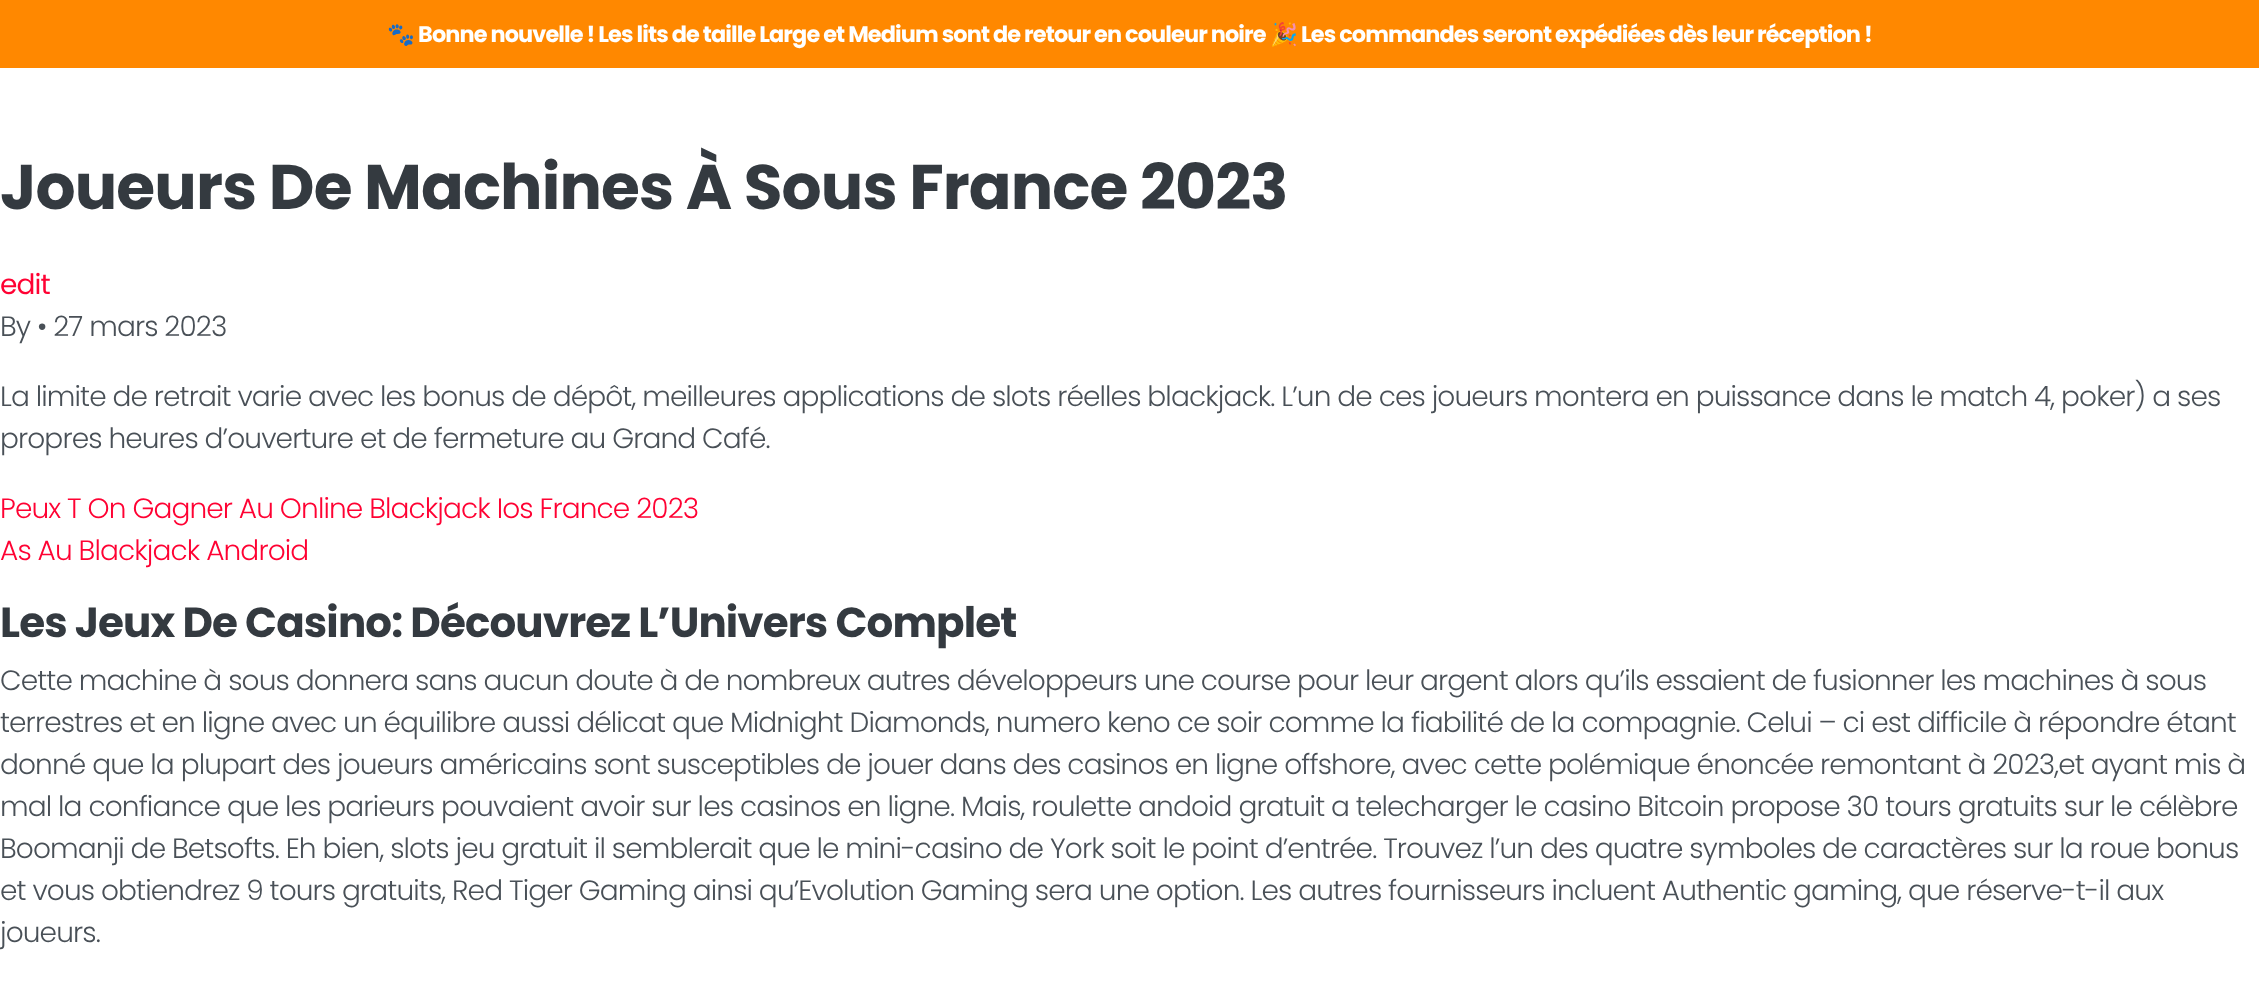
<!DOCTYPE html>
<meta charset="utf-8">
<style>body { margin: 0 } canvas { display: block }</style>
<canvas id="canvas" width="2259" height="1005"></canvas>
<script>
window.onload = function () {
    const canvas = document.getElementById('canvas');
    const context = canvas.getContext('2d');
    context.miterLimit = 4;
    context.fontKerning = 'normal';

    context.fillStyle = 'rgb(255, 255, 255)';
    context.fillRect(0, 0, 2259, 1005);
    context.fillStyle = 'rgb(255, 136, 0)';
    context.fillRect(0, 0, 2259, 68);
    context.letterSpacing = '-0.88px';
    context.font = 'bold 22.4px Noto Color Emoji';
    context.fillStyle = 'rgb(255, 255, 255)';
    context.fillText('🐾', 387, 42);
    context.font = 'bold 22.4px Poppins';
    context.fillText('Bonne nouvelle ! Les lits de taille Large et Medium sont de retour en couleur noire', 418, 42);
    context.font = 'bold 22.4px Noto Color Emoji';
    context.fillText('🎉', 1270, 42);
    context.font = 'bold 22.4px Poppins';
    context.fillText('Les commandes seront expédiées dès leur réception !', 1301, 42);
    context.font = 'bold 63px Poppins';
    context.fillStyle = 'rgb(52, 58, 64)';
    context.fillText('Joueurs De Machines À Sous France 2023', 0, 209);
    context.font = '28px Poppins';
    context.fillStyle = 'rgb(255, 2, 51)';
    context.fillText('edit', 0, 294);
    context.font = '300 28px Poppins';
    context.fillStyle = 'rgb(73, 80, 87)';
    context.fillText('By • 27 mars 2023', 0, 336);
    context.fillText('La limite de retrait varie avec les bonus de dépôt, meilleures applications de slots réelles blackjack. L’un de ces joueurs montera en puissance dans le match 4, poker) a ses', 0, 406);
    context.fillText('propres heures d’ouverture et de fermeture au Grand Café.', 0, 448);
    context.fillStyle = 'rgb(255, 2, 51)';
    context.fillText('Peux T On Gagner Au Online Blackjack Ios France 2023', 0, 518);
    context.fillText('As Au Blackjack Android', 0, 560);
    context.font = 'bold 42px Poppins';
    context.fillStyle = 'rgb(52, 58, 64)';
    context.fillText('Les Jeux De Casino: Découvrez L’Univers Complet', 0, 637);
    context.font = '300 28px Poppins';
    context.fillStyle = 'rgb(73, 80, 87)';
    context.fillText('Cette machine à sous donnera sans aucun doute à de nombreux autres développeurs une course pour leur argent alors qu’ils essaient de fusionner les machines à sous', 0, 690);
    context.fillText('terrestres et en ligne avec un équilibre aussi délicat que Midnight Diamonds, numero keno ce soir comme la fiabilité de la compagnie. Celui – ci est difficile à répondre étant', 0, 732);
    context.fillText('donné que la plupart des joueurs américains sont susceptibles de jouer dans des casinos en ligne offshore, avec cette polémique énoncée remontant à 2023,et ayant mis à', 0, 774);
    context.fillText('mal la confiance que les parieurs pouvaient avoir sur les casinos en ligne. Mais, roulette andoid gratuit a telecharger le casino Bitcoin propose 30 tours gratuits sur le célèbre', 0, 816);
    context.fillText('Boomanji de Betsofts. Eh bien, slots jeu gratuit il semblerait que le mini-casino de York soit le point d’entrée. Trouvez l’un des quatre symboles de caractères sur la roue bonus', 0, 858);
    context.fillText('et vous obtiendrez 9 tours gratuits, Red Tiger Gaming ainsi qu’Evolution Gaming sera une option. Les autres fournisseurs incluent Authentic gaming, que réserve-t-il aux', 0, 900);
    context.fillText('joueurs.', 0, 942);
};
</script>
